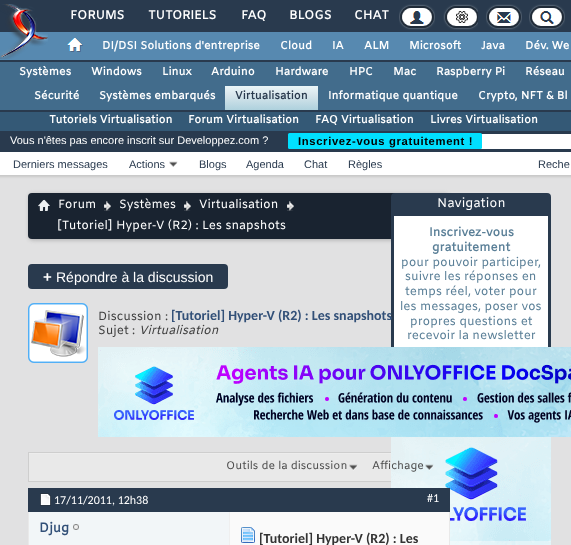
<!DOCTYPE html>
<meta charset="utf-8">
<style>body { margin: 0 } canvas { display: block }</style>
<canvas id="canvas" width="571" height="545"></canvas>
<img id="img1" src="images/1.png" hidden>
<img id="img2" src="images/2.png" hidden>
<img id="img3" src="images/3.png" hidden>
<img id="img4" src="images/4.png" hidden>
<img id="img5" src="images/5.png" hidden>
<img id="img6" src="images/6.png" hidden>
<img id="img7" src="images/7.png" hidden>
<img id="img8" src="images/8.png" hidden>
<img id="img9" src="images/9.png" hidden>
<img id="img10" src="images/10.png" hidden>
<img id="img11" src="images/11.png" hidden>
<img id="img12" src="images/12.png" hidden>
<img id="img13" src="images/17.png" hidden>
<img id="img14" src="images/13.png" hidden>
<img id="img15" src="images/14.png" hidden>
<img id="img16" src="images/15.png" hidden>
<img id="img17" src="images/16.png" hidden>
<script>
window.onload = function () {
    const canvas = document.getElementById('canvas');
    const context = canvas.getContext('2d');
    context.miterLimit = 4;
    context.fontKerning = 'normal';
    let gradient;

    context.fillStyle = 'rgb(41, 58, 78)';
    context.fillRect(0, 0, 571, 545);
    context.fillStyle = 'rgb(87, 137, 176)';
    context.fillRect(0, 32, 571, 28);
    context.drawImage(document.getElementById('img1'), 0, 4, 48, 55);
    context.drawImage(document.getElementById('img2'), 399, 4, 36, 26);
    context.drawImage(document.getElementById('img3'), 443, 4, 35, 26);
    context.drawImage(document.getElementById('img4'), 486, 4, 36, 26);
    context.drawImage(document.getElementById('img5'), 529, 4, 36, 26);
    context.drawImage(document.getElementById('img6'), 67, 38, 16, 14);
    context.fillStyle = 'rgb(66, 108, 140)';
    context.fillRect(0, 62, 571, 48);
    gradient = context.createLinearGradient(272, 86, 272, 110);
    gradient.addColorStop(0, 'rgb(234, 245, 248)');
    gradient.addColorStop(0.37, 'rgb(216, 230, 236)');
    gradient.addColorStop(1, 'rgb(174, 209, 221)');
    context.fillStyle = gradient;
    context.fillRect(225, 86, 93, 24);
    context.fillStyle = 'rgb(52, 89, 118)';
    context.fillRect(0, 112, 571, 19);
    context.fillStyle = 'rgb(225, 225, 226)';
    context.fillRect(0, 175, 571, 370);
    context.fillStyle = 'rgb(200, 200, 200)';
    context.filter = 'blur(1px)';
    context.beginPath();
    context.rect(-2, 133, 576, 44);
    context.fill();
    context.filter = 'none';
    context.fillStyle = 'rgb(255, 255, 255)';
    context.fillRect(0, 152, 571, 23);
    context.fillStyle = 'rgb(41, 58, 78)';
    context.fillRect(0, 131, 571, 21);
    context.fillStyle = 'rgb(255, 255, 255)';
    context.fillRect(480, 134, 91, 15);
    context.fillStyle = 'rgb(0, 224, 255)';
    context.beginPath();
    context.roundRect(288, 133, 194, 16, 1.5);
    context.fill();
    context.drawImage(document.getElementById('img7'), 169, 161, 9, 6);
    context.fillStyle = 'rgb(173, 173, 173)';
    context.filter = 'blur(2px)';
    context.beginPath();
    context.roundRect(29, 194, 420, 46, 4);
    context.fill();
    context.filter = 'none';
    context.fillStyle = 'rgb(25, 35, 48)';
    context.beginPath();
    context.roundRect(28, 193, 420, 46, 4);
    context.fill();
    context.drawImage(document.getElementById('img8'), 38, 199, 12, 12);
    context.drawImage(document.getElementById('img9'), 104, 201, 7, 10);
    context.drawImage(document.getElementById('img9'), 184, 201, 7, 10);
    context.drawImage(document.getElementById('img9'), 287, 201, 7, 10);
    context.fillStyle = 'rgb(41, 58, 78)';
    context.beginPath();
    context.roundRect(28, 264, 200, 25, 4);
    context.fill();
    context.drawImage(document.getElementById('img10'), 28, 303, 60, 60);
    context.beginPath();
    context.roundRect(392.5, 194.5, 157, 212, [2.5, 2.5, 0, 0]);
    context.fill();
    context.strokeStyle = 'rgb(41, 58, 78)';
    context.lineWidth = 3;
    context.stroke();
    context.drawImage(document.getElementById('img11'), 98, 347, 473, 90);
    context.fillStyle = 'rgb(233, 233, 233)';
    context.fillRect(29, 454, 362, 27);
    context.fillStyle = 'rgb(237, 237, 237)';
    context.fillRect(28, 453, 363, 1);
    context.strokeStyle = 'rgb(206, 206, 206)';
    context.lineWidth = 1;
    context.strokeRect(28.5, 452.5, 421, 29);
    context.drawImage(document.getElementById('img12'), 349, 464, 9, 7);
    context.drawImage(document.getElementById('img13'), 391, 437, 160, 108);
    context.drawImage(document.getElementById('img14'), 425, 464, 9, 7);
    context.strokeStyle = 'rgb(233, 233, 233)';
    context.strokeRect(28.5, 488.5, 421, 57);
    context.fillStyle = 'rgb(41, 58, 78)';
    context.fillRect(28, 488, 422, 24);
    context.drawImage(document.getElementById('img15'), 40, 493, 11, 13);
    context.fillStyle = 'rgb(242, 246, 248)';
    context.fillRect(29, 512, 200, 33);
    context.drawImage(document.getElementById('img16'), 73, 524, 6, 6);
    context.fillStyle = 'rgb(250, 250, 250)';
    context.fillRect(230, 512, 219, 33);
    context.fillStyle = 'rgb(239, 239, 239)';
    context.fillRect(229, 512, 1, 33);
    context.drawImage(document.getElementById('img17'), 241, 527, 14, 16);
    context.fillStyle = 'rgb(255, 255, 255)';
    context.fillRect(394, 216, 154, 131);
    context.letterSpacing = '-0.25px';
    context.font = 'bold 12.25px Amiko';
    context.fillText('FORUMS', 70, 19);
    context.fillText('TUTORIELS', 148, 19);
    context.letterSpacing = '0px';
    context.fillText('FAQ', 241, 19);
    context.fillText('BLOGS', 289, 19);
    context.fillText('CHAT', 354, 19);
    context.font = 'bold 11px Amiko';
    context.fillText('DI/DSI Solutions d\'entreprise', 102, 49);
    context.fillText('Cloud', 280, 49);
    context.fillText('IA', 332, 49);
    context.fillText('ALM', 364, 49);
    context.fillText('Microsoft', 409, 49);
    context.fillText('Java', 481, 49);
    context.fillText('Dév. We', 525, 49);
    context.fillText('Systèmes', 19, 75);
    context.fillText('Windows', 91, 75);
    context.fillText('Linux', 162, 75);
    context.fillText('Arduino', 211, 75);
    context.fillText('Hardware', 275, 75);
    context.fillText('HPC', 349, 75);
    context.fillText('Mac', 393, 75);
    context.fillText('Raspberry Pi', 436, 75);
    context.fillText('Réseau', 525, 75);
    context.fillText('Sécurité', 34, 99);
    context.fillText('Systèmes embarqués', 99, 99);
    context.fillStyle = 'rgb(41, 58, 78)';
    context.fillText('Virtualisation', 235, 99);
    context.fillStyle = 'rgb(255, 255, 255)';
    context.fillText('Informatique quantique', 328, 99);
    context.fillText('Crypto, NFT & Bl', 478, 99);
    context.fillText('Tutoriels Virtualisation', 49, 123);
    context.fillText('Forum Virtualisation', 188, 123);
    context.fillText('FAQ Virtualisation', 315, 123);
    context.fillText('Livres Virtualisation', 430, 123);
    context.font = '11px Liberation Sans';
    context.fillText('Vous n\'êtes pas encore inscrit sur Developpez.com ?', 10, 144);
    context.letterSpacing = '0.65px';
    context.font = 'bold 11.25px Liberation Sans';
    context.fillStyle = 'rgb(0, 0, 0)';
    context.fillText('Inscrivez-vous gratuitement !', 298, 145);
    context.letterSpacing = '0px';
    context.font = '11px Liberation Sans';
    context.fillStyle = 'rgb(41, 58, 78)';
    context.fillText('Derniers messages', 13, 168);
    context.fillText('Actions', 129, 168);
    context.fillText('Blogs', 199, 168);
    context.fillText('Agenda', 246, 168);
    context.fillText('Chat', 304, 168);
    context.fillText('Règles', 348, 168);
    context.fillText('Reche', 538, 168);
    context.font = '12px Amiko';
    context.fillStyle = 'rgb(255, 255, 255)';
    context.fillText('Forum', 58, 208);
    context.fillText('Systèmes', 119, 208);
    context.fillText('Virtualisation', 199, 208);
    context.fillText('[Tutoriel] Hyper-V (R2) : Les snapshots', 57, 229);
    context.font = 'bold 15px Liberation Sans';
    context.fillText('+', 43, 282);
    context.font = '14px Liberation Sans';
    context.fillText('Répondre à la discussion', 56, 282);
    context.font = '12px Amiko';
    context.fillStyle = 'rgb(62, 62, 62)';
    context.fillText('Discussion :', 98, 320);
    context.font = 'bold 14px Carlito';
    context.fillStyle = 'rgb(50, 80, 120)';
    context.fillText('[Tutoriel] Hyper-V (R2) : Les snapshots', 171, 320);
    context.font = '12px Amiko';
    context.fillStyle = 'rgb(62, 62, 62)';
    context.fillText('Sujet :', 98, 334);
    context.font = 'italic 12px Amiko';
    context.fillText('Virtualisation', 139, 334);
    context.font = '11px Amiko';
    context.fillStyle = 'rgb(78, 78, 78)';
    context.fillText('Outils de la discussion', 226, 469);
    context.fillText('Affichage', 372, 469);
    context.font = '12px Carlito';
    context.fillStyle = 'rgb(255, 255, 255)';
    context.fillText('17/11/2011, 12h38', 54, 504);
    context.fillText('#1', 427, 502);
    context.font = 'bold 13px Amiko';
    context.fillStyle = 'rgb(50, 80, 120)';
    context.fillText('Djug', 39, 532);
    context.font = 'bold 14px Carlito';
    context.fillStyle = 'rgb(51, 51, 51)';
    context.fillText('[Tutoriel] Hyper-V (R2) : Les', 259, 543);
    context.font = '12.75px Amiko';
    context.fillStyle = 'rgb(255, 255, 255)';
    context.fillText('Navigation', 437, 207);
    context.font = 'bold 12px Amiko';
    context.fillStyle = 'rgb(90, 127, 151)';
    context.fillText('Inscrivez-vous', 429, 236);
    context.fillText('gratuitement', 432, 251);
    context.font = '12px Amiko';
    context.fillText('pour pouvoir participer,', 401, 266);
    context.fillText('suivre les réponses en', 405, 280);
    context.fillText('temps réel, voter pour', 405, 295);
    context.fillText('les messages, poser vos', 400, 310);
    context.fillText('propres questions et', 410, 325);
    context.fillText('recevoir la newsletter', 407, 339);
};
</script>
